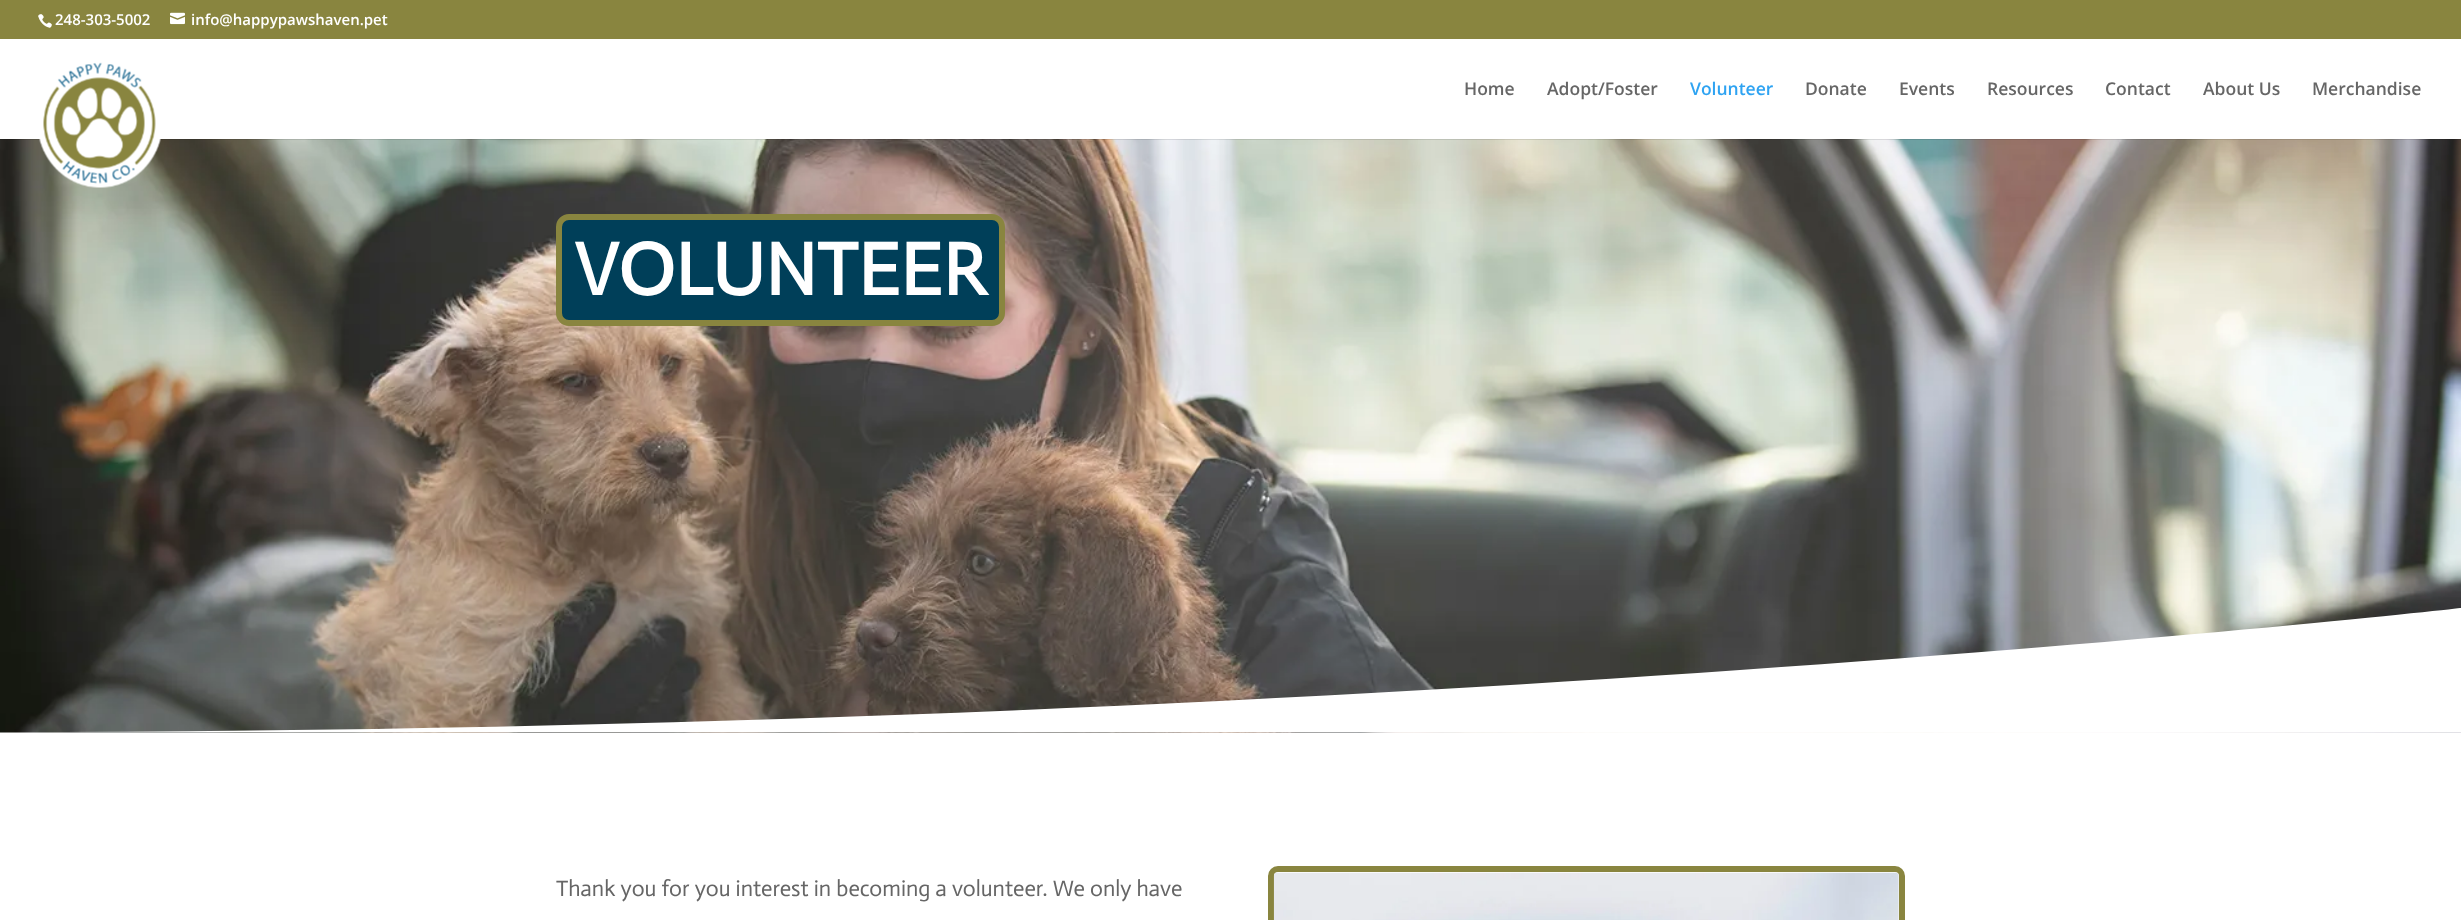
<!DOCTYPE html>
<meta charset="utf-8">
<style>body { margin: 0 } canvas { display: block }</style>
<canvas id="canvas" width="2461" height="920"></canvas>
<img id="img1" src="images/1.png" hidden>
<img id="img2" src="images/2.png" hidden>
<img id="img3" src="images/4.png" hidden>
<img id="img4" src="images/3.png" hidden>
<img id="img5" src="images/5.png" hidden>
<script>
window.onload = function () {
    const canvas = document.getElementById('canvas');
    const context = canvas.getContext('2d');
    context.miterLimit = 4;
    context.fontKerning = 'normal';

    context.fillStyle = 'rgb(255, 255, 255)';
    context.fillRect(0, 0, 2461, 920);
    context.fillStyle = 'rgb(137, 133, 63)';
    context.fillRect(0, 0, 2461, 39);
    context.drawImage(document.getElementById('img1'), 38, 14, 14, 14);
    context.drawImage(document.getElementById('img2'), 170, 12, 15, 13);
    context.drawImage(document.getElementById('img3'), 0, 139, 2461, 594);
    context.fillStyle = 'rgba(0, 0, 0, 0.1)';
    context.fillRect(0, 139, 2461, 1);
    context.drawImage(document.getElementById('img4'), 39, 62, 122, 126);
    context.fillStyle = 'rgb(0, 63, 89)';
    context.beginPath();
    context.roundRect(559, 217, 443, 106, 10);
    context.fill();
    context.strokeStyle = 'rgb(137, 133, 63)';
    context.lineWidth = 6;
    context.stroke();
    context.fillStyle = 'rgb(255, 255, 255)';
    context.beginPath();
    context.moveTo(2461, 732);
    context.lineTo(0, 732);
    context.bezierCurveTo(1359, 732, 2461, 608, 2461, 608);
    context.closePath();
    context.fill();
    context.beginPath();
    context.roundRect(1271, 869, 631, 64, 7);
    context.stroke();
    context.drawImage(document.getElementById('img5'), 1273, 872, 626, 48);
    context.font = '600 15px Open Sans';
    context.fillText('248-303-5002', 55, 25);
    context.fillText('info@happypawshaven.pet', 191, 25);
    context.font = '600 17.5px Open Sans';
    context.fillStyle = 'rgb(102, 102, 102)';
    context.fillText('Home', 1464, 95);
    context.fillText('Adopt/Foster', 1547, 95);
    context.fillStyle = 'rgb(46, 163, 242)';
    context.fillText('Volunteer', 1690, 95);
    context.fillStyle = 'rgb(102, 102, 102)';
    context.fillText('Donate', 1805, 95);
    context.fillText('Events', 1899, 95);
    context.fillText('Resources', 1987, 95);
    context.fillText('Contact', 2105, 95);
    context.fillText('About Us', 2203, 95);
    context.fillText('Merchandise', 2312, 95);
    context.font = 'bold 75px Actor';
    context.fillStyle = 'rgb(255, 255, 255)';
    context.fillText('VOLUNTEER', 574, 295);
    context.font = '22.5px Actor';
    context.fillStyle = 'rgb(102, 102, 102)';
    context.fillText('Thank you for you interest in becoming a volunteer. We only have', 556, 896);
};
</script>
